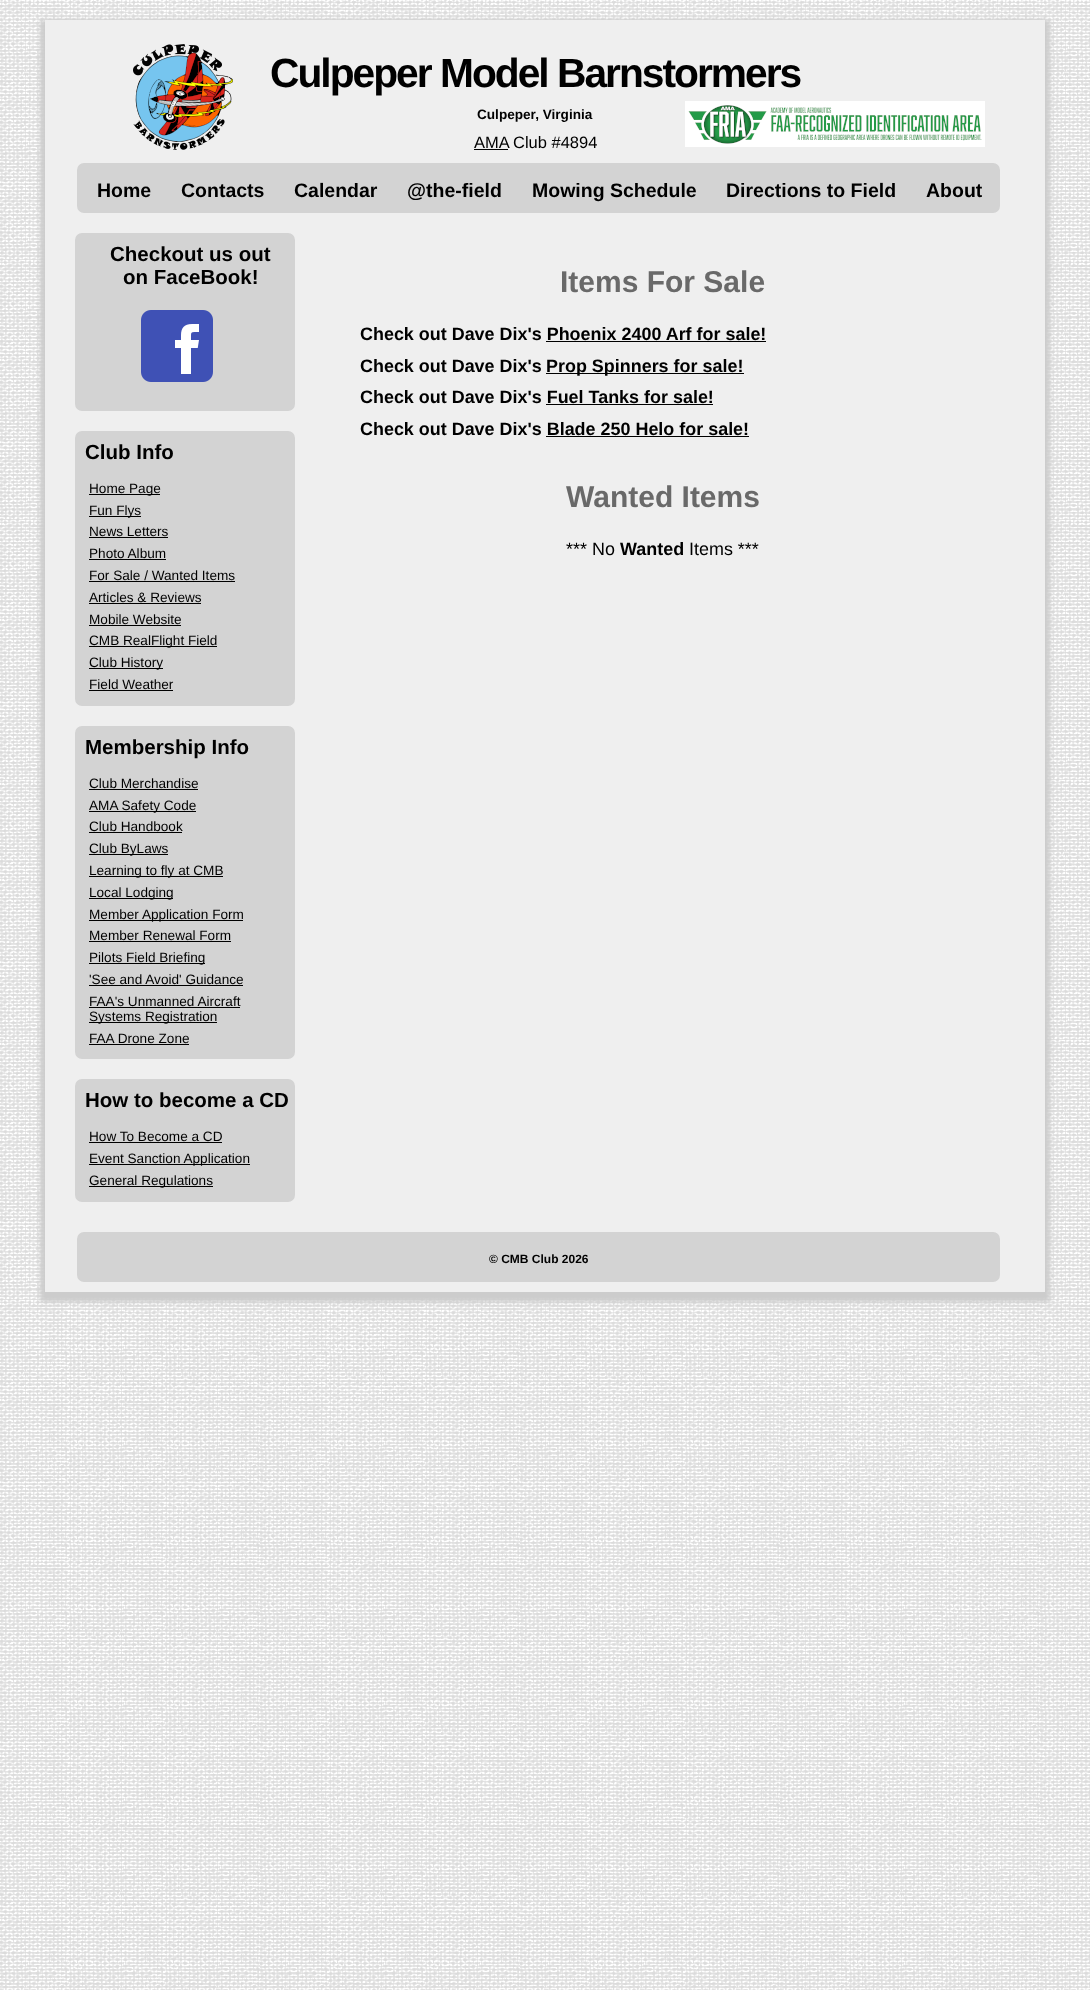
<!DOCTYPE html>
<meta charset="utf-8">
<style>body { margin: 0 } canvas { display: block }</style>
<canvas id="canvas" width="1090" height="1990"></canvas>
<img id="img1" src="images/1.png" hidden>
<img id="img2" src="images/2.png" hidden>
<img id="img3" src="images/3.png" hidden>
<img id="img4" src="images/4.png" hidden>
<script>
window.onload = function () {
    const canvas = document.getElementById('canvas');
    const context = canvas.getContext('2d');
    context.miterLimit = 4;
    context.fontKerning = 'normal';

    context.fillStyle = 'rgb(255, 255, 255)';
    context.fillRect(0, 0, 1090, 1990);
    context.drawImage(document.getElementById('img1'), 0, 0, 1090, 1990);
    context.fillStyle = 'rgb(204, 204, 204)';
    context.filter = 'blur(2.5px)';
    context.beginPath();
    context.rect(40, 20, 1010, 1282);
    context.fill();
    context.filter = 'none';
    context.fillStyle = 'rgb(239, 239, 239)';
    context.fillRect(45, 20, 1000, 1272);
    context.fillStyle = 'rgb(0, 0, 0)';
    context.fillRect(474, 149, 34, 1);
    context.fillStyle = 'rgb(211, 211, 211)';
    context.beginPath();
    context.roundRect(77, 163, 923, 50, 7);
    context.fill();
    context.drawImage(document.getElementById('img2'), 133, 44, 100, 106);
    context.drawImage(document.getElementById('img3'), 685, 101, 300, 46);
    context.beginPath();
    context.roundRect(75, 233, 220, 178, 7);
    context.fill();
    context.drawImage(document.getElementById('img4'), 141, 310, 72, 72);
    context.beginPath();
    context.roundRect(75, 431, 220, 275, 7);
    context.fill();
    context.fillStyle = 'rgb(0, 0, 0)';
    context.fillRect(89, 494, 71, 1);
    context.fillRect(89, 516, 52, 1);
    context.fillRect(89, 537, 79, 1);
    context.fillRect(89, 559, 77, 1);
    context.fillRect(89, 581, 146, 1);
    context.fillRect(89, 603, 112, 1);
    context.fillRect(89, 625, 92, 1);
    context.fillRect(89, 646, 128, 1);
    context.fillRect(89, 668, 74, 1);
    context.fillRect(89, 690, 84, 1);
    context.fillStyle = 'rgb(211, 211, 211)';
    context.beginPath();
    context.roundRect(75, 726, 220, 333, 7);
    context.fill();
    context.fillStyle = 'rgb(0, 0, 0)';
    context.fillRect(89, 789, 109, 1);
    context.fillRect(89, 811, 107, 1);
    context.fillRect(89, 832, 93, 1);
    context.fillRect(89, 854, 79, 1);
    context.fillRect(89, 876, 134, 1);
    context.fillRect(89, 898, 84, 1);
    context.fillRect(89, 920, 154, 1);
    context.fillRect(89, 941, 142, 1);
    context.fillRect(89, 963, 116, 1);
    context.fillRect(89, 985, 154, 1);
    context.fillRect(89, 1007, 151, 1);
    context.fillRect(89, 1022, 128, 1);
    context.fillRect(89, 1044, 100, 1);
    context.fillStyle = 'rgb(211, 211, 211)';
    context.beginPath();
    context.roundRect(75, 1079, 220, 123, 7);
    context.fill();
    context.fillStyle = 'rgb(0, 0, 0)';
    context.fillRect(89, 1142, 133, 1);
    context.fillRect(89, 1164, 161, 1);
    context.fillRect(89, 1186, 124, 1);
    context.fillRect(546, 341, 220, 1);
    context.fillRect(546, 373, 198, 1);
    context.fillRect(546, 404, 167, 1);
    context.fillRect(546, 436, 203, 1);
    context.fillStyle = 'rgb(211, 211, 211)';
    context.beginPath();
    context.roundRect(77, 1232, 923, 50, 7);
    context.fill();
    context.letterSpacing = '-2px';
    context.font = 'bold 40.75px Liberation Sans';
    context.fillStyle = 'rgb(0, 0, 0)';
    context.fillText('Culpeper Model Barnstormers', 270, 87);
    context.letterSpacing = '0px';
    context.font = 'bold 13.6px Liberation Sans';
    context.fillText('Culpeper, Virginia', 477, 119);
    context.font = '16.5px Liberation Sans';
    context.fillText('AMA', 474, 148);
    context.fillText('Club #4894', 513, 148);
    context.font = 'bold 19.5px Liberation Sans';
    context.fillText('Home', 97, 197);
    context.fillText('Contacts', 181, 197);
    context.fillText('Calendar', 294, 197);
    context.fillText('@the-field', 407, 197);
    context.fillText('Mowing Schedule', 532, 197);
    context.fillText('Directions to Field', 726, 197);
    context.fillText('About', 926, 197);
    context.font = 'bold 20.5px Liberation Sans';
    context.fillText('Checkout us out', 110, 261);
    context.fillText('on FaceBook!', 123, 284);
    context.fillText('Club Info', 85, 459);
    context.font = '13.6px Liberation Sans';
    context.fillText('Home Page', 89, 493);
    context.fillText('Fun Flys', 89, 515);
    context.fillText('News Letters', 89, 536);
    context.fillText('Photo Album', 89, 558);
    context.fillText('For Sale / Wanted Items', 89, 580);
    context.fillText('Articles & Reviews', 89, 602);
    context.fillText('Mobile Website', 89, 624);
    context.fillText('CMB RealFlight Field', 89, 645);
    context.fillText('Club History', 89, 667);
    context.fillText('Field Weather', 89, 689);
    context.font = 'bold 20.5px Liberation Sans';
    context.fillText('Membership Info', 85, 754);
    context.font = '13.6px Liberation Sans';
    context.fillText('Club Merchandise', 89, 788);
    context.fillText('AMA Safety Code', 89, 810);
    context.fillText('Club Handbook', 89, 831);
    context.fillText('Club ByLaws', 89, 853);
    context.fillText('Learning to fly at CMB', 89, 875);
    context.fillText('Local Lodging', 89, 897);
    context.fillText('Member Application Form', 89, 919);
    context.fillText('Member Renewal Form', 89, 940);
    context.fillText('Pilots Field Briefing', 89, 962);
    context.fillText('\'See and Avoid\' Guidance', 89, 984);
    context.fillText('FAA\'s Unmanned Aircraft', 89, 1006);
    context.fillText('Systems Registration', 89, 1021);
    context.fillText('FAA Drone Zone', 89, 1043);
    context.font = 'bold 20.5px Liberation Sans';
    context.fillText('How to become a CD', 85, 1107);
    context.font = '13.6px Liberation Sans';
    context.fillText('How To Become a CD', 89, 1141);
    context.fillText('Event Sanction Application', 89, 1163);
    context.fillText('General Regulations', 89, 1185);
    context.font = 'bold 30px Liberation Sans';
    context.fillStyle = 'rgb(105, 105, 105)';
    context.fillText('Items For Sale', 560, 292);
    context.font = 'bold 17.95px Liberation Sans';
    context.fillStyle = 'rgb(0, 0, 0)';
    context.fillText('Check out Dave Dix\'s Phoenix 2400 Arf for sale!', 360, 340);
    context.fillText('Check out Dave Dix\'s', 360, 372);
    context.fillText('Prop Spinners for sale!', 546, 372);
    context.fillText('Check out Dave Dix\'s Fuel Tanks for sale!', 360, 403);
    context.fillText('Check out Dave Dix\'s Blade 250 Helo for sale!', 360, 435);
    context.font = 'bold 30px Liberation Sans';
    context.fillStyle = 'rgb(105, 105, 105)';
    context.fillText('Wanted Items', 566, 507);
    context.font = '17.95px Liberation Sans';
    context.fillStyle = 'rgb(0, 0, 0)';
    context.fillText('*** No', 566, 555);
    context.font = 'bold 17.95px Liberation Sans';
    context.fillText('Wanted', 620, 555);
    context.font = '17.95px Liberation Sans';
    context.fillText('Items ***', 689, 555);
    context.font = 'bold 12px Liberation Sans';
    context.fillText('© CMB Club 2026', 489, 1263);
};
</script>
